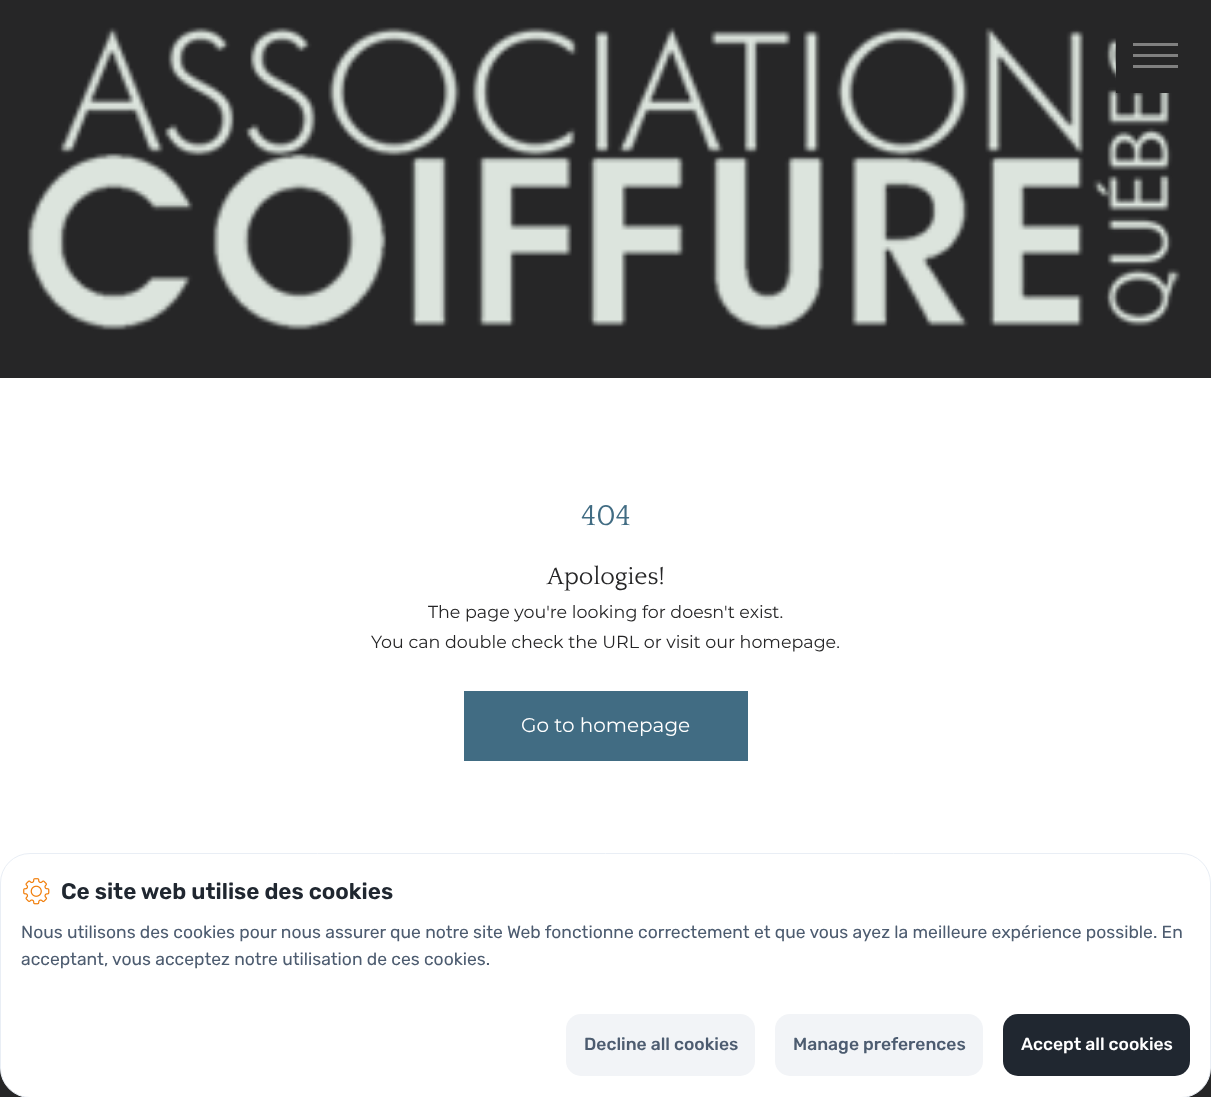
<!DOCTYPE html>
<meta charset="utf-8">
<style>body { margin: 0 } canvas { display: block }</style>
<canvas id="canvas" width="1211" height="1097"></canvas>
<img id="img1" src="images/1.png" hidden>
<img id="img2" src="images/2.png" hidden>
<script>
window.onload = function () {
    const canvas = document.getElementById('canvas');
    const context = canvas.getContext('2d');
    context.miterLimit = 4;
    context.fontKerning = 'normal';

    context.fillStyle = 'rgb(255, 255, 255)';
    context.fillRect(0, 0, 1211, 1097);
    context.fillStyle = 'rgb(38, 38, 39)';
    context.fillRect(0, 0, 1211, 378);
    context.drawImage(document.getElementById('img1'), 27, 27, 1154, 304);
    context.fillRect(1116, 38, 57, 55);
    context.fillStyle = 'rgb(128, 128, 128)';
    context.fillRect(1133, 43, 45, 3);
    context.fillRect(1133, 54, 45, 3);
    context.fillRect(1133, 65, 45, 3);
    context.fillStyle = 'rgb(65, 108, 131)';
    context.fillRect(464, 691, 284, 70);
    context.fillStyle = 'rgb(38, 38, 39)';
    context.fillRect(0, 1068, 1211, 29);
    context.fillStyle = 'rgb(255, 255, 255)';
    context.beginPath();
    context.roundRect(0.5, 853.5, 1210, 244, 29.5);
    context.fill();
    context.strokeStyle = 'rgb(233, 238, 245)';
    context.stroke();
    context.drawImage(document.getElementById('img2'), 23, 878, 27, 27);
    context.fillStyle = 'rgb(242, 244, 247)';
    context.beginPath();
    context.roundRect(566, 1014, 189, 62, 15);
    context.fill();
    context.beginPath();
    context.roundRect(775, 1014, 208, 62, 15);
    context.fill();
    context.fillStyle = 'rgb(32, 39, 48)';
    context.beginPath();
    context.roundRect(1003, 1014, 187, 62, 15);
    context.fill();
    context.font = '30px Quattrocento';
    context.fillStyle = 'rgb(65, 108, 131)';
    context.fillText('404', 581, 525);
    context.font = '25px Quattrocento';
    context.fillStyle = 'rgb(38, 38, 39)';
    context.fillText('Apologies!', 547, 584);
    context.font = '100 17.5px Montserrat';
    context.fillText('The page you\'re looking for doesn\'t exist.', 428, 618);
    context.fillText('You can double check the URL or visit our homepage.', 371, 648);
    context.font = '100 20px Montserrat';
    context.fillStyle = 'rgb(255, 255, 255)';
    context.fillText('Go to homepage', 521, 732);
    context.font = '600 22.5px Rubik';
    context.fillStyle = 'rgb(32, 39, 48)';
    context.fillText('Ce site web utilise des cookies', 61, 899);
    context.font = '17.5px Rubik';
    context.fillStyle = 'rgb(77, 92, 112)';
    context.fillText('Nous utilisons des cookies pour nous assurer que notre site Web fonctionne correctement et que vous ayez la meilleure expérience possible. En', 21, 938);
    context.fillText('acceptant, vous acceptez notre utilisation de ces cookies.', 21, 965);
    context.font = '500 17.5px Rubik';
    context.fillText('Decline all cookies', 584, 1050);
    context.fillText('Manage preferences', 793, 1050);
    context.fillStyle = 'rgb(255, 255, 255)';
    context.fillText('Accept all cookies', 1021, 1050);
};
</script>
